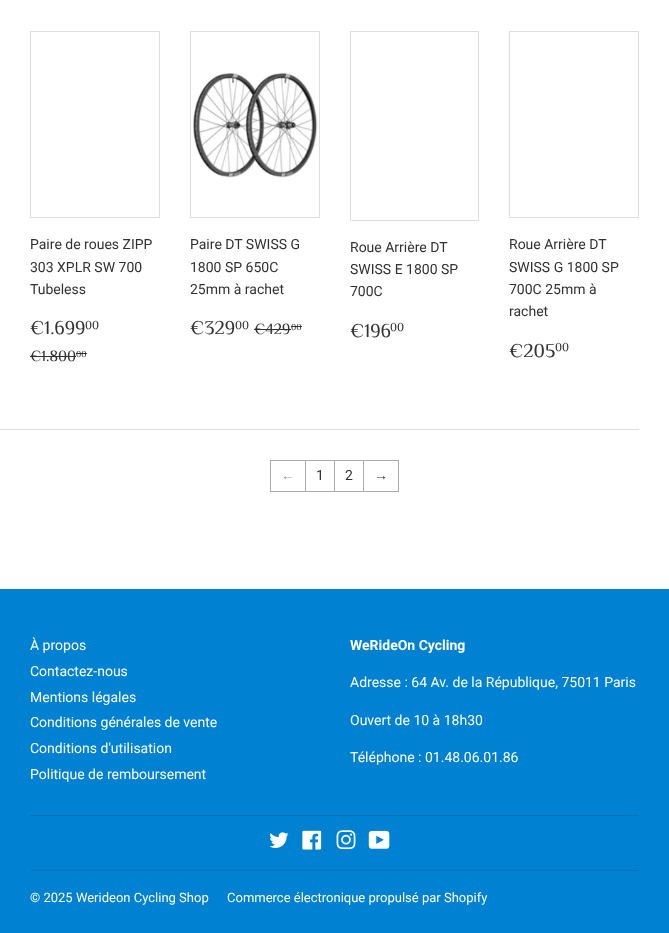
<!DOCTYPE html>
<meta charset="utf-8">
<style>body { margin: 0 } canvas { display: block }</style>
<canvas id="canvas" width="669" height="933"></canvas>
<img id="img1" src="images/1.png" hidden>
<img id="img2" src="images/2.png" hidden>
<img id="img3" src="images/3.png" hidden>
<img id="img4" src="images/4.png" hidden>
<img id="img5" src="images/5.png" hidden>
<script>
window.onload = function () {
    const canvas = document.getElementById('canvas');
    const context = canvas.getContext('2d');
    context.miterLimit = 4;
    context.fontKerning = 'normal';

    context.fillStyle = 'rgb(255, 255, 255)';
    context.fillRect(0, 0, 669, 933);
    context.strokeStyle = 'rgb(222, 222, 222)';
    context.strokeRect(30.5, 31.5, 129, 186);
    context.fillStyle = 'rgb(50, 50, 50)';
    context.fillRect(30, 356, 46, 1);
    context.fillRect(76, 353, 11, 1);
    context.strokeRect(190.5, 31.5, 129, 186);
    context.drawImage(document.getElementById('img1'), 193, 72, 125, 106);
    context.fillRect(254, 329, 37, 1);
    context.fillRect(291, 326, 11, 1);
    context.strokeRect(350.5, 31.5, 128, 189);
    context.strokeRect(509.5, 31.5, 129, 186);
    context.fillStyle = 'rgb(222, 222, 222)';
    context.fillRect(0, 429, 639, 1);
    context.strokeStyle = 'rgb(171, 171, 171)';
    context.strokeRect(270.5, 460.5, 35, 31);
    context.strokeRect(334.5, 460.5, 29, 31);
    context.strokeRect(305.5, 460.5, 29, 31);
    context.strokeRect(363.5, 460.5, 35, 31);
    context.fillStyle = 'rgb(0, 129, 209)';
    context.fillRect(0, 589, 669, 344);
    context.fillStyle = 'rgb(0, 113, 183)';
    context.fillRect(30, 815, 609, 1);
    context.drawImage(document.getElementById('img2'), 269, 832, 20, 16);
    context.drawImage(document.getElementById('img3'), 302, 830, 20, 20);
    context.drawImage(document.getElementById('img4'), 336, 830, 20, 20);
    context.drawImage(document.getElementById('img5'), 368, 830, 22, 19);
    context.fillRect(30, 870, 609, 1);
    context.font = '14px Roboto';
    context.fillStyle = 'rgb(50, 50, 50)';
    context.fillText('Paire de roues ZIPP', 30, 249);
    context.fillText('303 XPLR SW 700', 30, 272);
    context.fillText('Tubeless', 30, 294);
    context.font = '19.5px Philosopher';
    context.fillText('€1.699', 30, 334);
    context.font = '12px Philosopher';
    context.fillText('00', 85, 329);
    context.font = '15.5px Philosopher';
    context.fillText('€1.800', 30, 361);
    context.font = '9px Philosopher';
    context.fillText('00', 76, 357);
    context.font = '14px Roboto';
    context.fillText('Paire DT SWISS G', 190, 249);
    context.fillText('1800 SP 650C', 190, 272);
    context.fillText('25mm à rachet', 190, 294);
    context.font = '19.5px Philosopher';
    context.fillText('€329', 190, 334);
    context.font = '12px Philosopher';
    context.fillText('00', 235, 329);
    context.font = '15.5px Philosopher';
    context.fillText('€429', 254, 334);
    context.font = '9px Philosopher';
    context.fillText('00', 291, 330);
    context.font = '14px Roboto';
    context.fillText('Roue Arrière DT', 350, 252);
    context.fillText('SWISS E 1800 SP', 350, 274);
    context.fillText('700C', 350, 296);
    context.font = '19.5px Philosopher';
    context.fillText('€196', 350, 337);
    context.font = '12px Philosopher';
    context.fillText('00', 390, 331);
    context.font = '14px Roboto';
    context.fillText('Roue Arrière DT', 509, 249);
    context.fillText('SWISS G 1800 SP', 509, 272);
    context.fillText('700C 25mm à', 509, 294);
    context.fillText('rachet', 509, 316);
    context.font = '19.5px Philosopher';
    context.fillText('€205', 509, 357);
    context.font = '12px Philosopher';
    context.fillText('00', 555, 351);
    context.font = '14px Liberation Sans';
    context.fillStyle = 'rgb(153, 153, 153)';
    context.fillText('←', 281, 480);
    context.font = '14px Roboto';
    context.fillStyle = 'rgb(50, 50, 50)';
    context.fillText('1', 316, 480);
    context.fillText('2', 345, 480);
    context.font = '14px Liberation Sans';
    context.fillText('→', 374, 480);
    context.font = '14px Roboto';
    context.fillStyle = 'rgb(255, 255, 255)';
    context.fillText('À propos', 30, 650);
    context.fillText('Contactez-nous', 30, 676);
    context.fillText('Mentions légales', 30, 702);
    context.fillText('Conditions générales de vente', 30, 727);
    context.fillText('Conditions d\'utilisation', 30, 753);
    context.fillText('Politique de remboursement', 30, 779);
    context.font = 'bold 14px Roboto';
    context.fillText('WeRideOn Cycling', 350, 650);
    context.font = '14px Roboto';
    context.fillText('Adresse : 64 Av. de la République, 75011 Paris', 350, 687);
    context.fillText('Ouvert de 10 à 18h30', 350, 725);
    context.fillText('Téléphone : 01.48.06.01.86', 350, 762);
    context.font = '13px Roboto';
    context.fillText('© 2025 Werideon Cycling Shop', 30, 902);
    context.fillText('Commerce électronique propulsé par Shopify', 227, 902);
};
</script>
